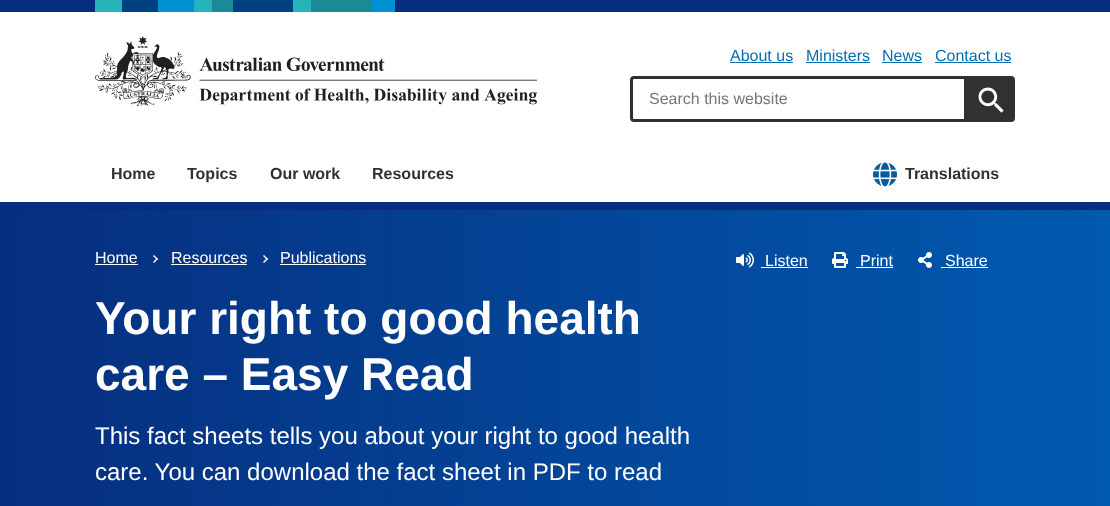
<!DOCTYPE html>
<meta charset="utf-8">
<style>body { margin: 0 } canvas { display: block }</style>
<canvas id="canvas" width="1110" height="506"></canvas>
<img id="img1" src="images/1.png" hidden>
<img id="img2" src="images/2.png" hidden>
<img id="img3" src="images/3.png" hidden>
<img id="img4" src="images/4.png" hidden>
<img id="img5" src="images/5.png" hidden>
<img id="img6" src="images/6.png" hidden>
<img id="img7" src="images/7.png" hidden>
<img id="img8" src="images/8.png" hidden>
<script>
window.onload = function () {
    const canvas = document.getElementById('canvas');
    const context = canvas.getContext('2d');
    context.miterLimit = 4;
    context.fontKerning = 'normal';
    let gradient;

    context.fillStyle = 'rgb(255, 255, 255)';
    context.fillRect(0, 0, 1110, 506);
    context.fillStyle = 'rgb(7, 46, 126)';
    context.fillRect(0, 0, 1110, 12);
    context.fillStyle = 'rgb(39, 179, 187)';
    context.fillRect(95, 0, 27, 12);
    context.fillStyle = 'rgb(0, 65, 129)';
    context.fillRect(122, 0, 36, 12);
    context.fillStyle = 'rgb(0, 145, 213)';
    context.fillRect(158, 0, 36, 12);
    context.fillStyle = 'rgb(39, 179, 187)';
    context.fillRect(194, 0, 18, 12);
    context.fillStyle = 'rgb(26, 138, 150)';
    context.fillRect(212, 0, 21, 12);
    context.fillStyle = 'rgb(0, 65, 129)';
    context.fillRect(233, 0, 60, 12);
    context.fillStyle = 'rgb(39, 179, 187)';
    context.fillRect(293, 0, 18, 12);
    context.fillStyle = 'rgb(26, 138, 150)';
    context.fillRect(311, 0, 60, 12);
    context.fillStyle = 'rgb(0, 145, 213)';
    context.fillRect(371, 0, 24, 12);
    context.drawImage(document.getElementById('img1'), 95, 36, 442, 70);
    context.fillStyle = 'rgb(0, 111, 176)';
    context.fillRect(730, 62, 63, 1);
    context.fillRect(806, 62, 64, 1);
    context.fillRect(882, 62, 40, 1);
    context.fillRect(935, 62, 76, 1);
    context.beginPath();
    context.roundRect(631.5, 77.5, 334, 43, [2.5, 0, 0, 2.5]);
    context.strokeStyle = 'rgb(49, 49, 49)';
    context.lineWidth = 3;
    context.stroke();
    context.fillStyle = 'rgb(49, 49, 49)';
    context.beginPath();
    context.roundRect(967, 76, 48, 46, [0, 4, 4, 0]);
    context.fill();
    context.drawImage(document.getElementById('img2'), 978, 87, 26, 26);
    context.fillStyle = 'rgb(7, 46, 126)';
    context.fillRect(0, 202, 1110, 8);
    context.drawImage(document.getElementById('img3'), 873, 162, 24, 25);
    gradient = context.createLinearGradient(0, 400, 1110, 400);
    gradient.addColorStop(0, 'rgb(7, 46, 126)');
    gradient.addColorStop(1, 'rgb(0, 90, 176)');
    context.fillStyle = gradient;
    context.fillRect(0, 210, 1110, 296);
    context.fillStyle = 'rgb(255, 255, 255)';
    context.fillRect(95, 264, 43, 1);
    context.drawImage(document.getElementById('img4'), 153, 255, 5, 8);
    context.fillRect(171, 264, 76, 1);
    context.drawImage(document.getElementById('img5'), 263, 255, 5, 8);
    context.fillRect(280, 264, 86, 1);
    context.drawImage(document.getElementById('img6'), 736, 252, 18, 16);
    context.fillRect(761, 267, 47, 1);
    context.drawImage(document.getElementById('img7'), 832, 252, 16, 16);
    context.fillRect(856, 267, 37, 1);
    context.drawImage(document.getElementById('img8'), 918, 252, 14, 16);
    context.fillRect(941, 267, 47, 1);
    context.font = '16px Liberation Sans';
    context.fillStyle = 'rgb(0, 111, 176)';
    context.fillText('About us', 730, 61);
    context.fillText('Ministers', 806, 61);
    context.fillText('News', 882, 61);
    context.fillText('Contact us', 935, 61);
    context.fillStyle = 'rgb(117, 117, 117)';
    context.fillText('Search this website', 649, 104);
    context.font = 'bold 16px Liberation Sans';
    context.fillStyle = 'rgb(49, 49, 49)';
    context.fillText('Home', 111, 179);
    context.fillText('Topics', 187, 179);
    context.fillText('Our work', 270, 179);
    context.fillText('Resources', 372, 179);
    context.fillText('Translations', 905, 179);
    context.font = '16px Liberation Sans';
    context.fillStyle = 'rgb(255, 255, 255)';
    context.fillText('Home', 95, 263);
    context.fillText('Resources', 171, 263);
    context.fillText('Publications', 280, 263);
    context.font = 'bold 46px Liberation Sans';
    context.fillText('Your right to good health', 95, 334);
    context.fillText('care – Easy Read', 95, 390);
    context.font = '24px Liberation Sans';
    context.fillText('This fact sheets tells you about your right to good health', 95, 444);
    context.fillText('care. You can download the fact sheet in PDF to read', 95, 480);
    context.font = '16px Liberation Sans';
    context.fillText('Listen', 765, 266);
    context.fillText('Print', 860, 266);
    context.fillText('Share', 945, 266);
};
</script>
